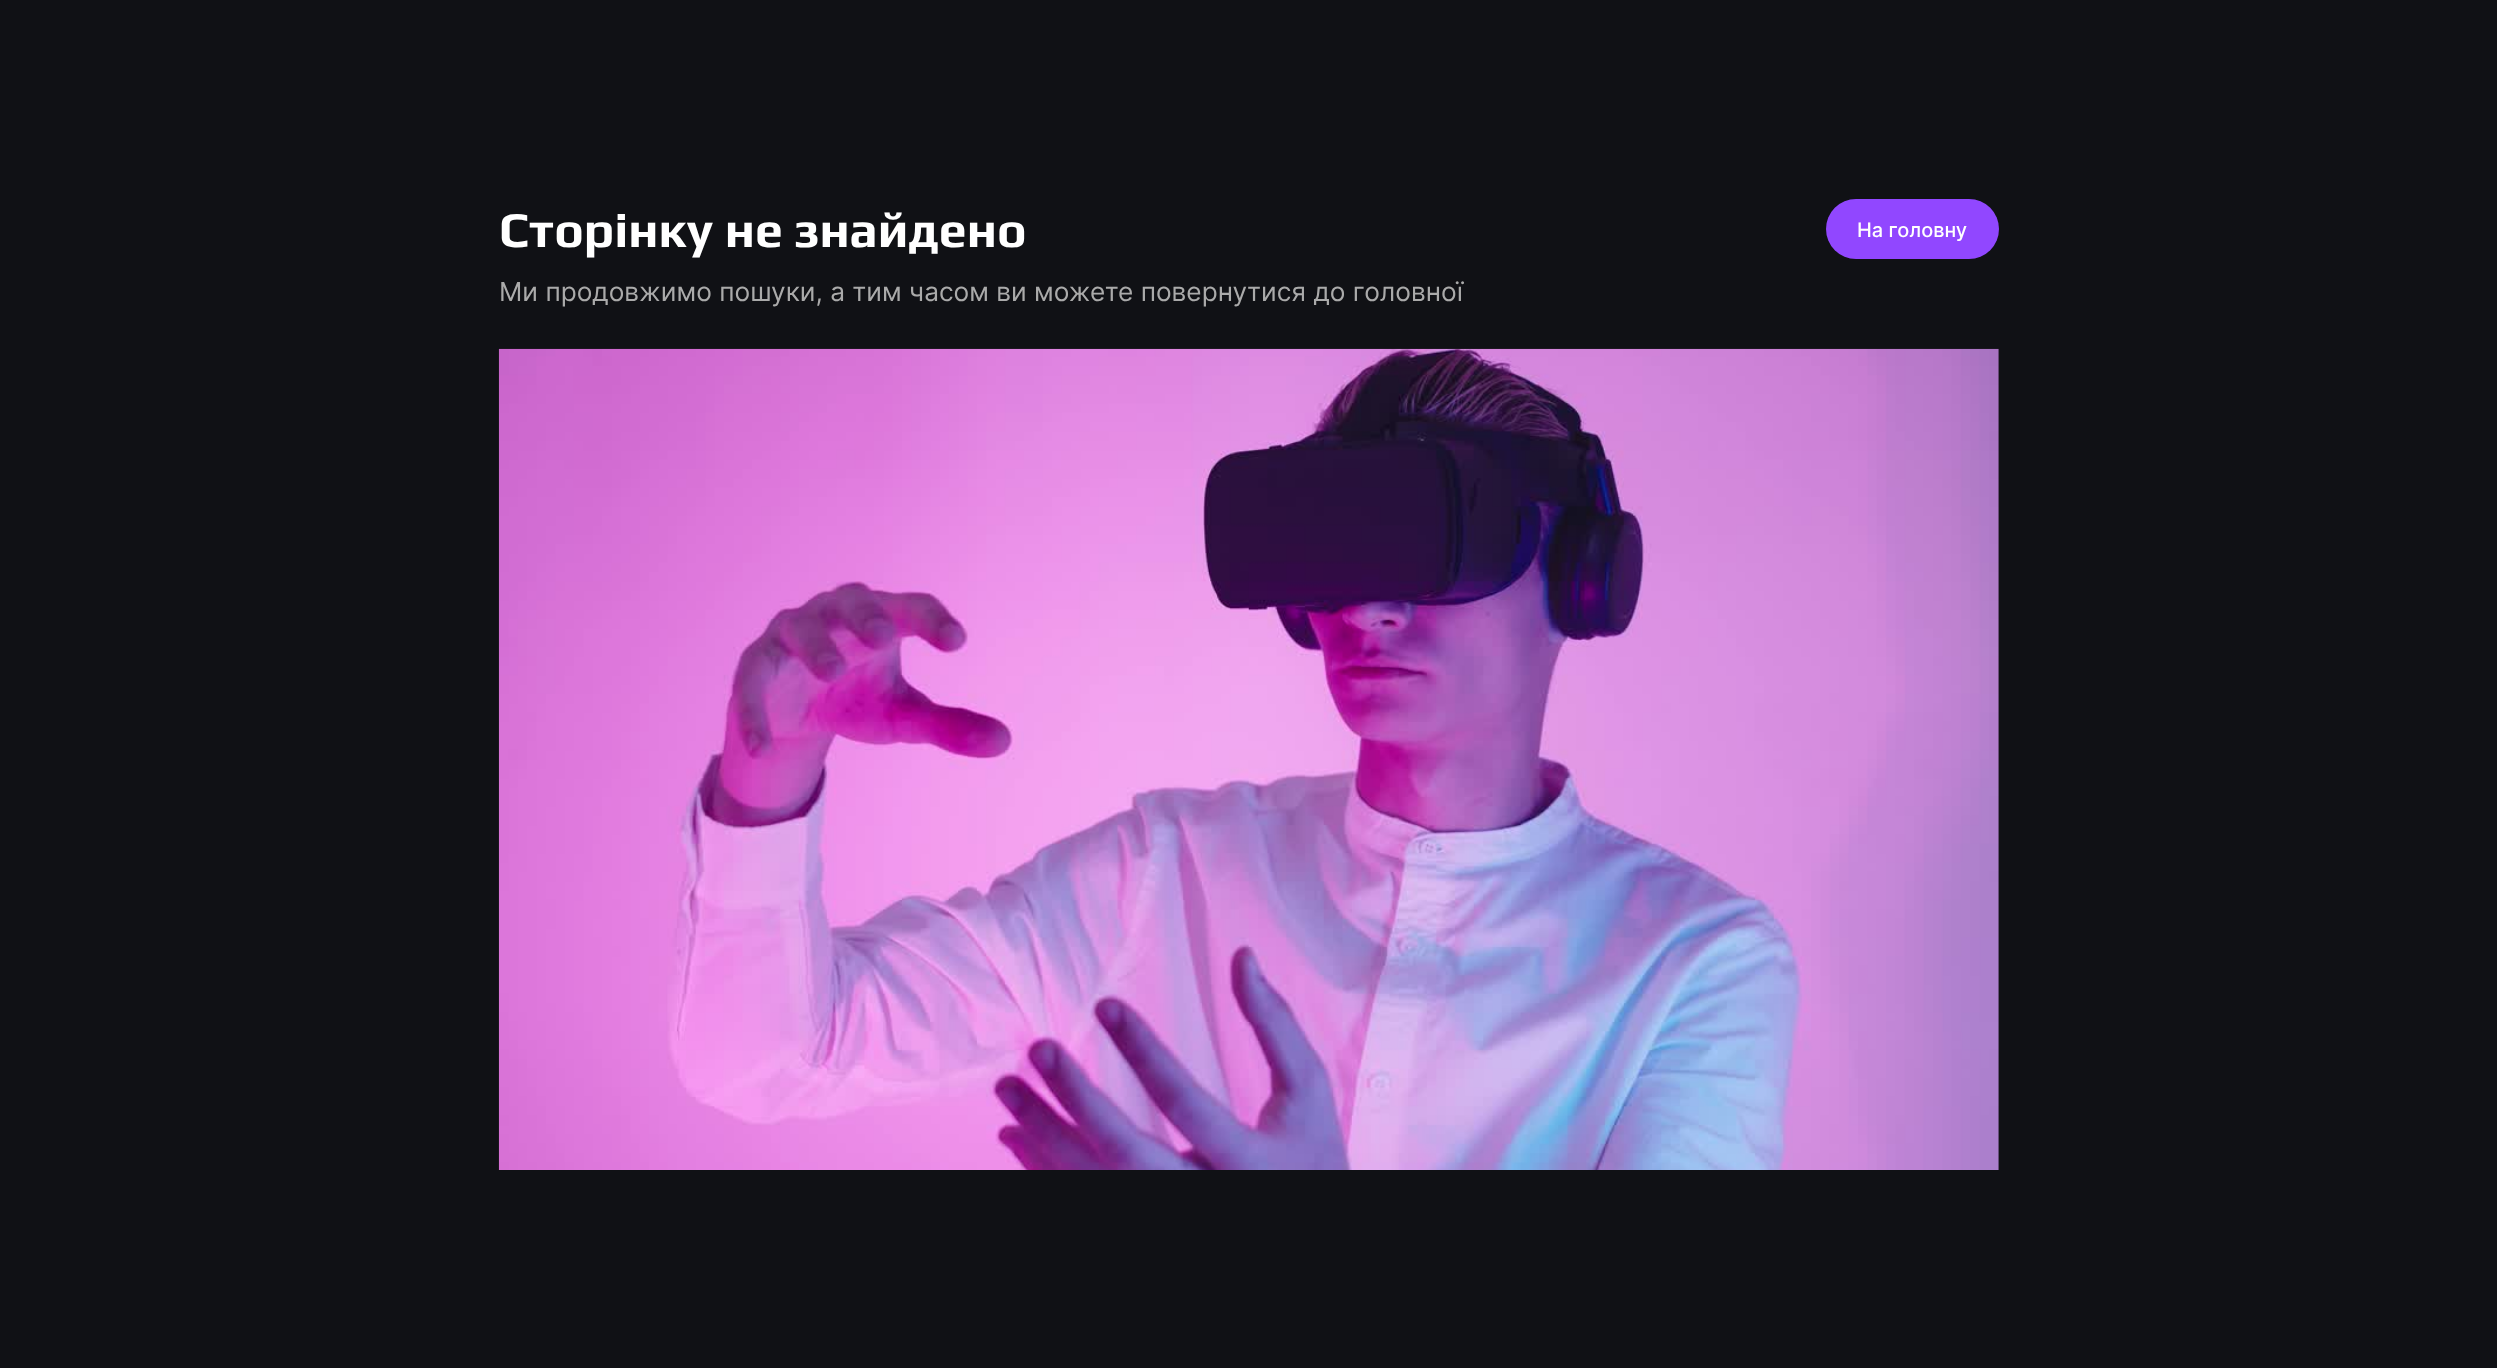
<!DOCTYPE html>
<meta charset="utf-8">
<style>body { margin: 0 } canvas { display: block }</style>
<canvas id="canvas" width="2497" height="1368"></canvas>
<img id="img1" src="images/1.png" hidden>
<script>
window.onload = function () {
    const canvas = document.getElementById('canvas');
    const context = canvas.getContext('2d');
    context.miterLimit = 4;
    context.fontKerning = 'normal';

    context.fillStyle = 'rgb(16, 17, 21)';
    context.fillRect(0, 0, 2497, 1368);
    context.fillStyle = 'rgb(145, 71, 255)';
    context.beginPath();
    context.roundRect(1826, 199, 173, 60, 30);
    context.fill();
    context.drawImage(document.getElementById('img1'), 498, 348, 1501, 822);
    context.font = 'bold 50px Play';
    context.fillStyle = 'rgb(255, 255, 255)';
    context.fillText('Cторінку не знайдено', 499, 247);
    context.font = '26.25px Inter';
    context.fillStyle = 'rgb(170, 170, 170)';
    context.fillText('Ми продовжимо пошуки, а тим часом ви можете повернутися до головної', 499, 301);
    context.font = '500 20px Inter';
    context.fillStyle = 'rgb(255, 255, 255)';
    context.fillText('На головну', 1857, 237);
};
</script>
